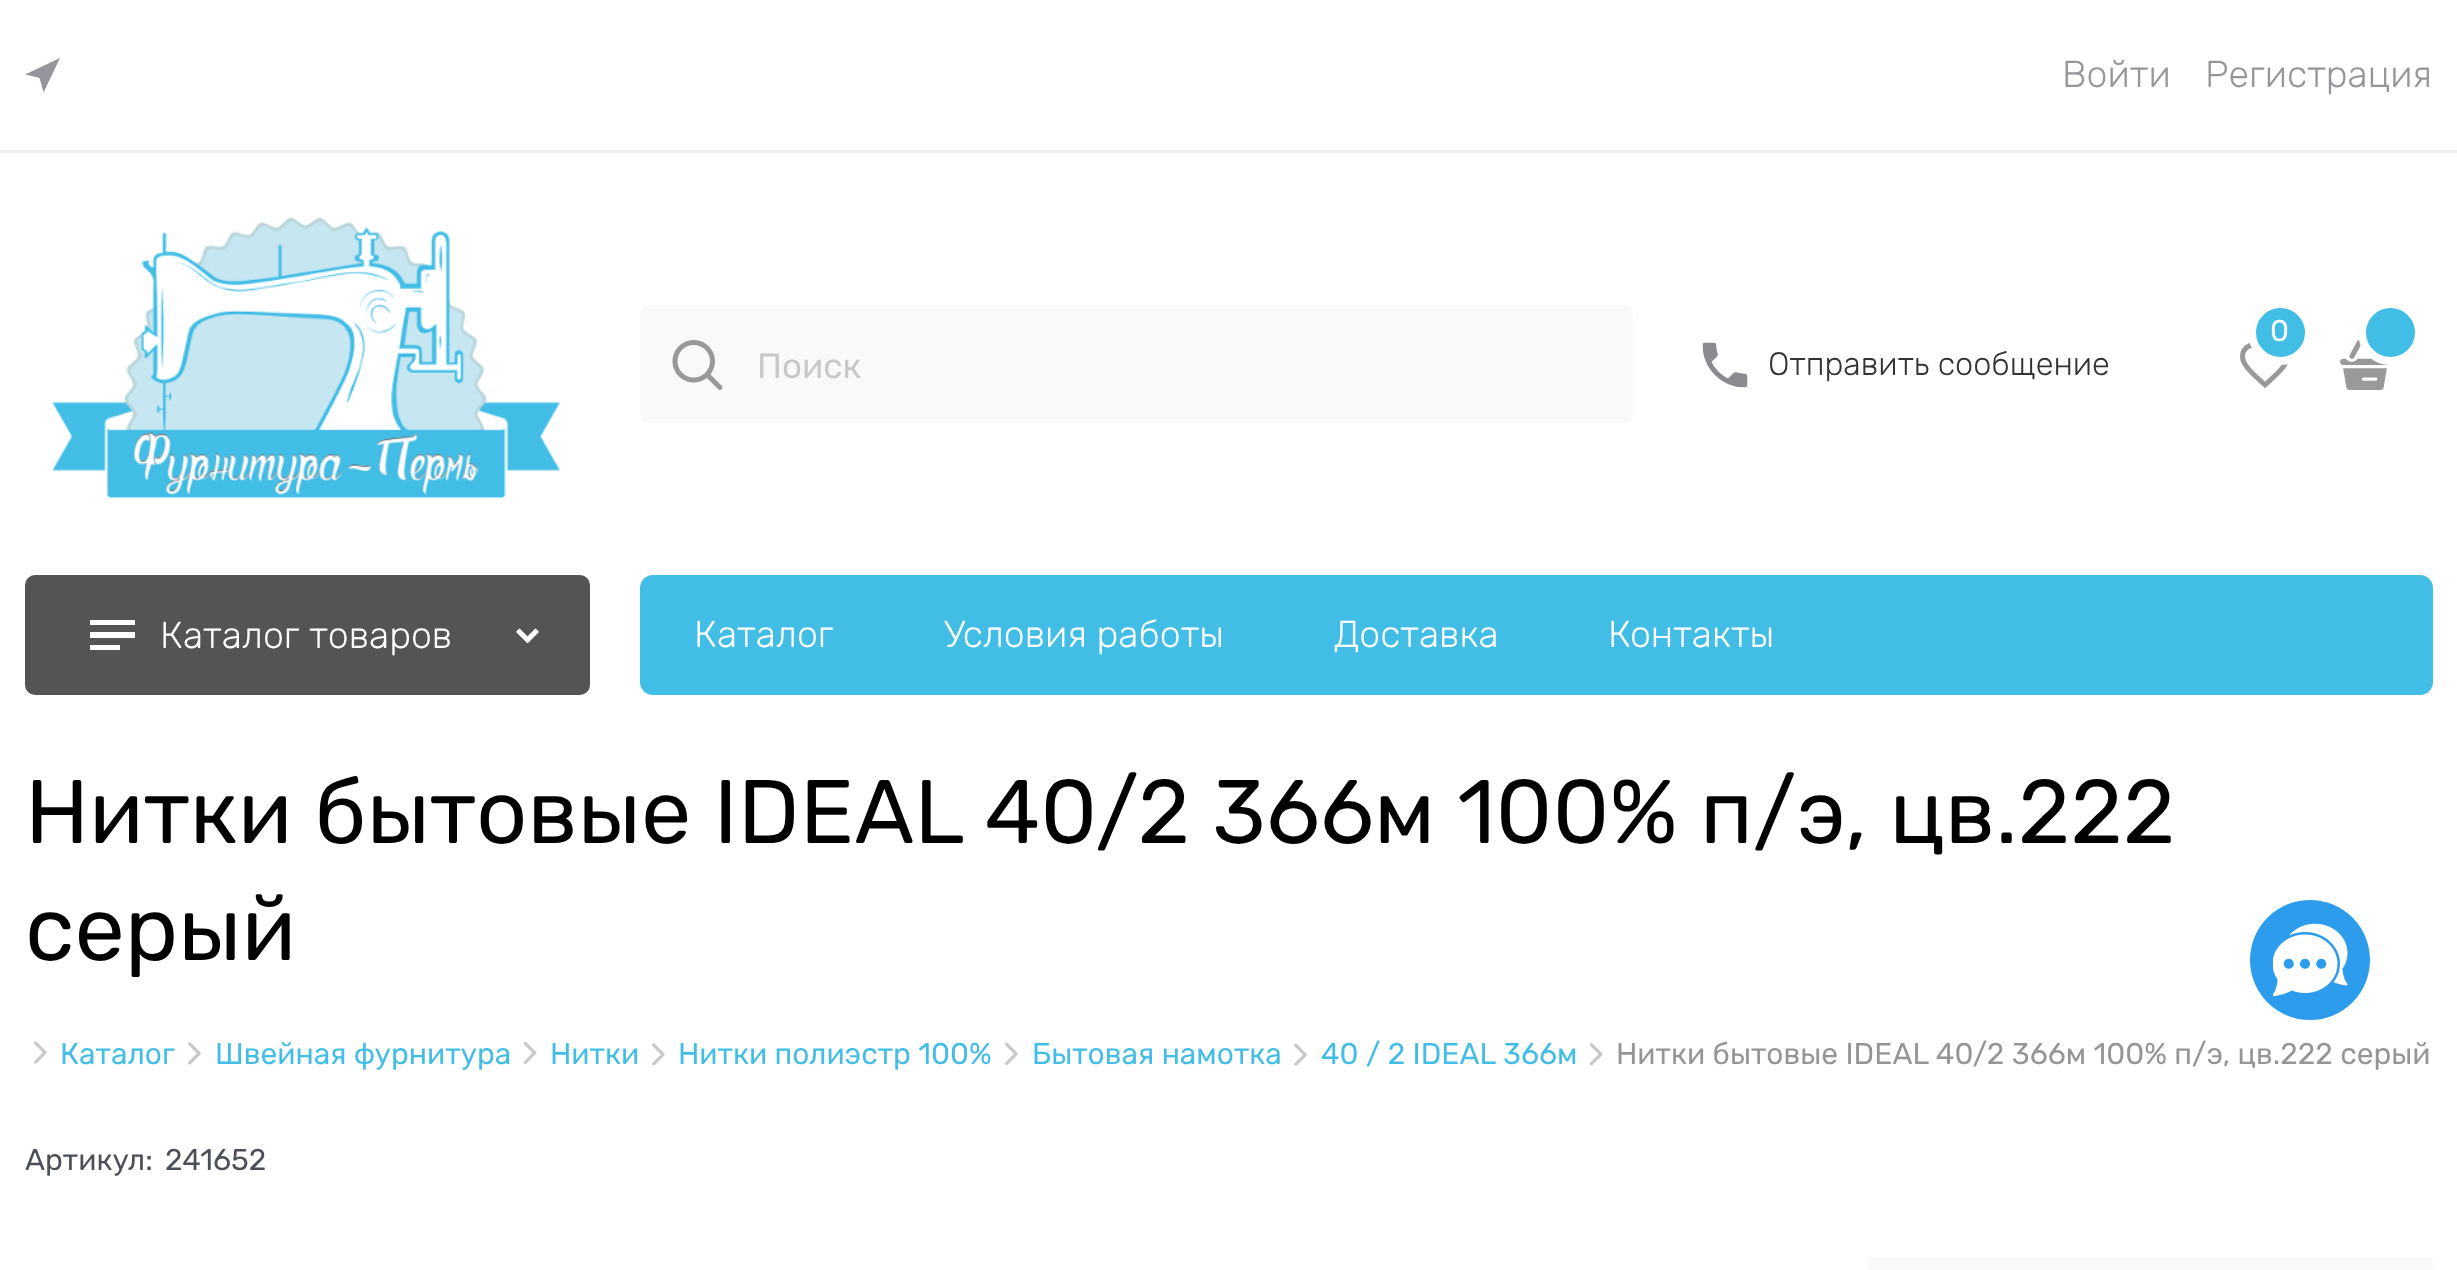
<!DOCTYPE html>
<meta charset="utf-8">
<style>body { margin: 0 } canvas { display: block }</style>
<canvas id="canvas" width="2457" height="1270"></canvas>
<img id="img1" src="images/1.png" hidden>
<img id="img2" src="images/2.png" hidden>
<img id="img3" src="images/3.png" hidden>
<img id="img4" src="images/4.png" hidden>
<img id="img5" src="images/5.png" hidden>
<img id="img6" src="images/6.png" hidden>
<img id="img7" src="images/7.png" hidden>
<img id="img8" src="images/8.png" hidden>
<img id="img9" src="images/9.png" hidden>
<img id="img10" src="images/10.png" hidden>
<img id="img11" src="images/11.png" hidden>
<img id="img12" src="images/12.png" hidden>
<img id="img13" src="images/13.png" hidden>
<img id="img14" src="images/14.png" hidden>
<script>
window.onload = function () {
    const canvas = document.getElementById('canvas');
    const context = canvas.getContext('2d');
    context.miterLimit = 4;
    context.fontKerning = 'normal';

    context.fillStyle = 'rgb(255, 255, 255)';
    context.fillRect(0, 0, 2457, 1270);
    context.fillStyle = 'rgb(239, 239, 244)';
    context.fillRect(0, 150, 2457, 3);
    context.fillStyle = 'rgb(148, 150, 155)';
    context.beginPath();
    context.moveTo(25, 74.5);
    context.lineTo(38, 77.5);
    context.bezierCurveTo(39, 78, 40, 78.5, 40, 79.5);
    context.lineTo(43.5, 92.5);
    context.lineTo(60, 58);
    context.closePath();
    context.fill();
    context.drawImage(document.getElementById('img1'), 52, 217, 508, 281);
    context.drawImage(document.getElementById('img2'), 2240, 343, 49, 45);
    context.fillStyle = 'rgb(66, 189, 230)';
    context.beginPath();
    context.arc(2280.5, 332.5, 28.5, 0, 2 * Math.PI);
    context.fill();
    context.strokeStyle = 'rgb(255, 255, 255)';
    context.lineWidth = 8;
    context.stroke();
    context.drawImage(document.getElementById('img3'), 2340, 340, 49, 50);
    context.beginPath();
    context.arc(2390.5, 332.5, 28.5, 0, 2 * Math.PI);
    context.fill();
    context.stroke();
    context.fillStyle = 'rgb(249, 249, 249)';
    context.beginPath();
    context.roundRect(640, 305, 993, 118, 10);
    context.fill();
    context.drawImage(document.getElementById('img4'), 672, 340, 51, 50);
    context.drawImage(document.getElementById('img5'), 1702, 342, 46, 46);
    context.fillStyle = 'rgb(83, 85, 84)';
    context.beginPath();
    context.roundRect(25, 575, 565, 120, 10);
    context.fill();
    context.fillStyle = 'rgb(255, 255, 255)';
    context.beginPath();
    context.moveTo(90, 650);
    context.lineTo(120, 650);
    context.lineTo(120, 645);
    context.lineTo(90, 645);
    context.closePath();
    context.moveTo(90, 620);
    context.lineTo(90, 625);
    context.lineTo(135, 625);
    context.lineTo(135, 620);
    context.closePath();
    context.moveTo(90, 638);
    context.lineTo(135, 638);
    context.lineTo(135, 632);
    context.lineTo(90, 632);
    context.closePath();
    context.fill();
    context.drawImage(document.getElementById('img6'), 516, 628, 23, 16);
    context.fillStyle = 'rgb(66, 189, 230)';
    context.beginPath();
    context.roundRect(640, 575, 1793, 120, 13);
    context.fill();
    context.drawImage(document.getElementById('img7'), 34, 1041, 13, 23);
    context.drawImage(document.getElementById('img8'), 188, 1042, 13, 23);
    context.drawImage(document.getElementById('img9'), 523, 1041, 14, 23);
    context.drawImage(document.getElementById('img10'), 652, 1043, 13, 23);
    context.drawImage(document.getElementById('img11'), 1005, 1042, 13, 23);
    context.drawImage(document.getElementById('img12'), 1294, 1043, 13, 23);
    context.drawImage(document.getElementById('img13'), 1589, 1043, 14, 23);
    context.fillStyle = 'rgb(249, 249, 249)';
    context.fillRect(1868, 1258, 565, 12);
    context.fillStyle = 'rgb(45, 156, 237)';
    context.beginPath();
    context.arc(2310, 960, 60, 0, 2 * Math.PI);
    context.fill();
    context.drawImage(document.getElementById('img14'), 2273, 923, 75, 74);
    context.font = '300 37.5px Rubik';
    context.fillStyle = 'rgb(148, 150, 155)';
    context.fillText('Войти', 2062, 87);
    context.fillText('Регистрация', 2205, 87);
    context.font = '30px Rubik';
    context.fillStyle = 'rgb(255, 255, 255)';
    context.fillText('0', 2270, 341);
    context.font = '35px Rubik';
    context.fillStyle = 'rgb(200, 199, 204)';
    context.fillText('Поиск', 757, 378);
    context.font = '300 32.5px Rubik';
    context.fillStyle = 'rgb(51, 51, 51)';
    context.fillText('Отправить сообщение', 1768, 375);
    context.font = '300 37.5px Rubik';
    context.fillStyle = 'rgb(255, 255, 255)';
    context.fillText('Каталог товаров', 160, 648);
    context.fillText('Каталог', 694, 647);
    context.fillText('Условия работы', 944, 647);
    context.fillText('Доставка', 1334, 647);
    context.fillText('Контакты', 1608, 647);
    context.font = '90px Rubik';
    context.fillStyle = 'rgb(0, 0, 0)';
    context.fillText('Нитки бытовые IDEAL 40/2 366м 100% п/э, цв.222', 25, 843);
    context.fillText('серый', 25, 960);
    context.font = '30px Rubik';
    context.fillStyle = 'rgb(66, 189, 230)';
    context.fillText('Каталог', 60, 1064);
    context.fillText('Швейная фурнитура', 215, 1064);
    context.fillText('Нитки', 550, 1064);
    context.fillText('Нитки полиэстр 100%', 678, 1064);
    context.fillText('Бытовая намотка', 1032, 1064);
    context.fillText('40 / 2 IDEAL 366м', 1321, 1064);
    context.fillStyle = 'rgb(150, 148, 148)';
    context.fillText('Нитки бытовые IDEAL 40/2 366м 100% п/э, цв.222 серый', 1616, 1064);
    context.fillStyle = 'rgb(75, 79, 88)';
    context.fillText('Артикул:', 25, 1170);
    context.fillText('241652', 165, 1170);
};
</script>
